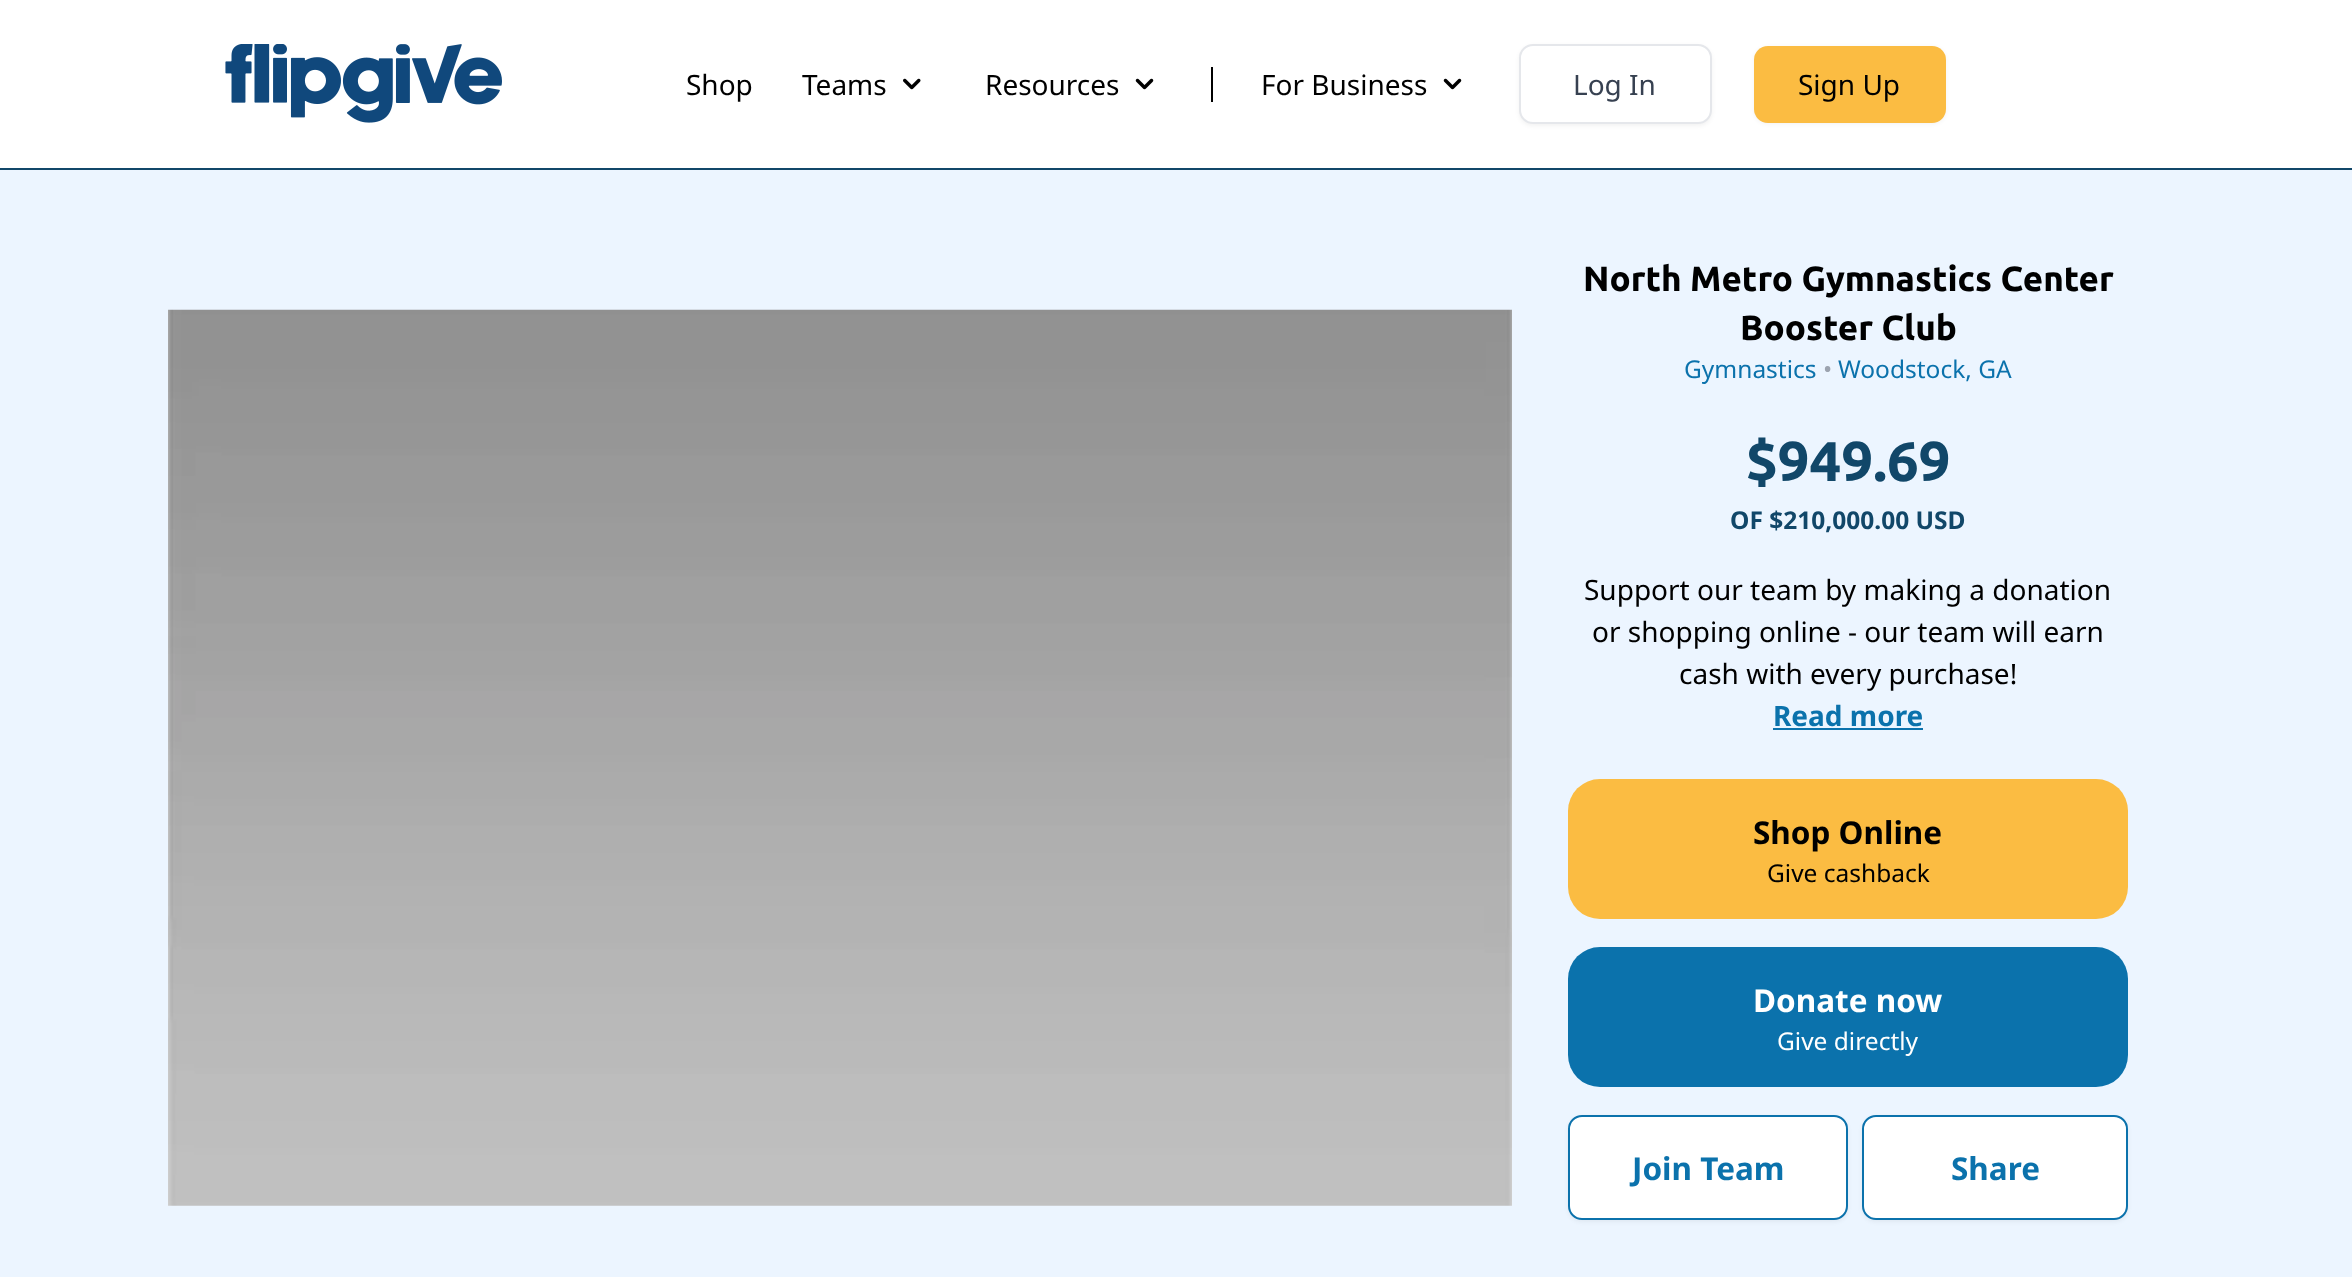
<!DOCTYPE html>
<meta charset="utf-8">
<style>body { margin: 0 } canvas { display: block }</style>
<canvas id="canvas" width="2352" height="1277"></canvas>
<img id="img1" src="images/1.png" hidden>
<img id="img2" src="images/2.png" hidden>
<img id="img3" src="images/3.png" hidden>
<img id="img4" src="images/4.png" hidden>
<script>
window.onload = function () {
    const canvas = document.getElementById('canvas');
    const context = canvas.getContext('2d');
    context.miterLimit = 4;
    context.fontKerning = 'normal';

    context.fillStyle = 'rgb(255, 255, 255)';
    context.fillRect(0, 0, 2352, 1277);
    context.fillStyle = 'rgb(17, 71, 105)';
    context.fillRect(0, 168, 2352, 2);
    context.drawImage(document.getElementById('img1'), 225, 44, 277, 79);
    context.drawImage(document.getElementById('img2'), 903, 78, 18, 12);
    context.drawImage(document.getElementById('img3'), 1135, 78, 19, 12);
    context.fillStyle = 'rgb(0, 0, 0)';
    context.fillRect(1211, 67, 2, 35);
    context.drawImage(document.getElementById('img3'), 1443, 78, 19, 12);
    context.fillStyle = 'rgba(0, 0, 0, 0.05)';
    context.filter = 'blur(2px)';
    context.beginPath();
    context.roundRect(1519, 46, 193, 80, 14);
    context.fill();
    context.filter = 'none';
    context.fillStyle = 'rgb(255, 255, 255)';
    context.beginPath();
    context.roundRect(1520, 45, 191, 78, 13);
    context.fill();
    context.strokeStyle = 'rgb(229, 231, 235)';
    context.lineWidth = 2;
    context.stroke();
    context.fillStyle = 'rgba(0, 0, 0, 0.05)';
    context.filter = 'blur(2px)';
    context.beginPath();
    context.roundRect(1754, 47, 192, 77, 14);
    context.fill();
    context.filter = 'none';
    context.fillStyle = 'rgb(251, 188, 66)';
    context.beginPath();
    context.roundRect(1754, 46, 192, 77, 14);
    context.fill();
    context.fillStyle = 'rgb(236, 245, 255)';
    context.fillRect(0, 170, 2352, 1107);
    context.drawImage(document.getElementById('img4'), 168, 309, 1344, 897);
    context.fillStyle = 'rgb(11, 114, 172)';
    context.fillRect(1773, 728, 150, 2);
    context.fillStyle = 'rgb(251, 188, 66)';
    context.beginPath();
    context.roundRect(1568, 779, 560, 140, 32);
    context.fill();
    context.fillStyle = 'rgb(11, 114, 172)';
    context.beginPath();
    context.roundRect(1568, 947, 560, 140, 32);
    context.fill();
    context.fillStyle = 'rgba(0, 0, 0, 0.05)';
    context.filter = 'blur(2px)';
    context.beginPath();
    context.roundRect(1568, 1117, 280, 105, 14);
    context.fill();
    context.filter = 'none';
    context.fillStyle = 'rgb(255, 255, 255)';
    context.beginPath();
    context.roundRect(1569, 1116, 278, 103, 13);
    context.fill();
    context.strokeStyle = 'rgb(11, 114, 172)';
    context.stroke();
    context.fillStyle = 'rgba(0, 0, 0, 0.05)';
    context.filter = 'blur(2px)';
    context.beginPath();
    context.roundRect(1862, 1117, 266, 105, 14);
    context.fill();
    context.filter = 'none';
    context.fillStyle = 'rgb(255, 255, 255)';
    context.beginPath();
    context.roundRect(1863, 1116, 264, 103, 13);
    context.fill();
    context.stroke();
    context.font = '28px Noto Sans';
    context.fillStyle = 'rgb(0, 0, 0)';
    context.fillText('Shop', 686, 95);
    context.fillText('Teams', 802, 95);
    context.fillText('Resources', 985, 95);
    context.fillText('For Business', 1261, 95);
    context.fillStyle = 'rgb(55, 65, 81)';
    context.fillText('Log In', 1573, 95);
    context.fillStyle = 'rgb(0, 0, 0)';
    context.fillText('Sign Up', 1798, 95);
    context.font = 'bold 35px Ubuntu';
    context.fillText('North Metro Gymnastics Center', 1583, 291);
    context.fillText('Booster Club', 1740, 340);
    context.font = '24.5px Noto Sans';
    context.fillStyle = 'rgb(11, 114, 172)';
    context.fillText('Gymnastics', 1684, 378);
    context.fillStyle = 'rgb(156, 163, 175)';
    context.fillText('•', 1823, 378);
    context.fillStyle = 'rgb(11, 114, 172)';
    context.fillText('Woodstock, GA', 1838, 378);
    context.font = 'bold 56px Ubuntu';
    context.fillStyle = 'rgb(17, 71, 105)';
    context.fillText('$949.69', 1746, 481);
    context.font = 'bold 24.5px Noto Sans';
    context.fillText('OF $210,000.00 USD', 1730, 529);
    context.font = '28px Noto Sans';
    context.fillStyle = 'rgb(0, 0, 0)';
    context.fillText('Support our team by making a donation', 1584, 600);
    context.fillText('or shopping online - our team will earn', 1592, 642);
    context.fillText('cash with every purchase!', 1679, 684);
    context.font = 'bold 28px Noto Sans';
    context.fillStyle = 'rgb(11, 114, 172)';
    context.fillText('Read more', 1773, 726);
    context.font = 'bold 31.5px Noto Sans';
    context.fillStyle = 'rgb(0, 0, 0)';
    context.fillText('Shop Online', 1753, 844);
    context.font = '24.5px Noto Sans';
    context.fillText('Give cashback', 1767, 882);
    context.font = 'bold 31.5px Noto Sans';
    context.fillStyle = 'rgb(255, 255, 255)';
    context.fillText('Donate now', 1753, 1012);
    context.font = '24.5px Noto Sans';
    context.fillText('Give directly', 1777, 1050);
    context.font = 'bold 31.5px Noto Sans';
    context.fillStyle = 'rgb(11, 114, 172)';
    context.fillText('Join Team', 1632, 1180);
    context.fillText('Share', 1951, 1180);
};
</script>
